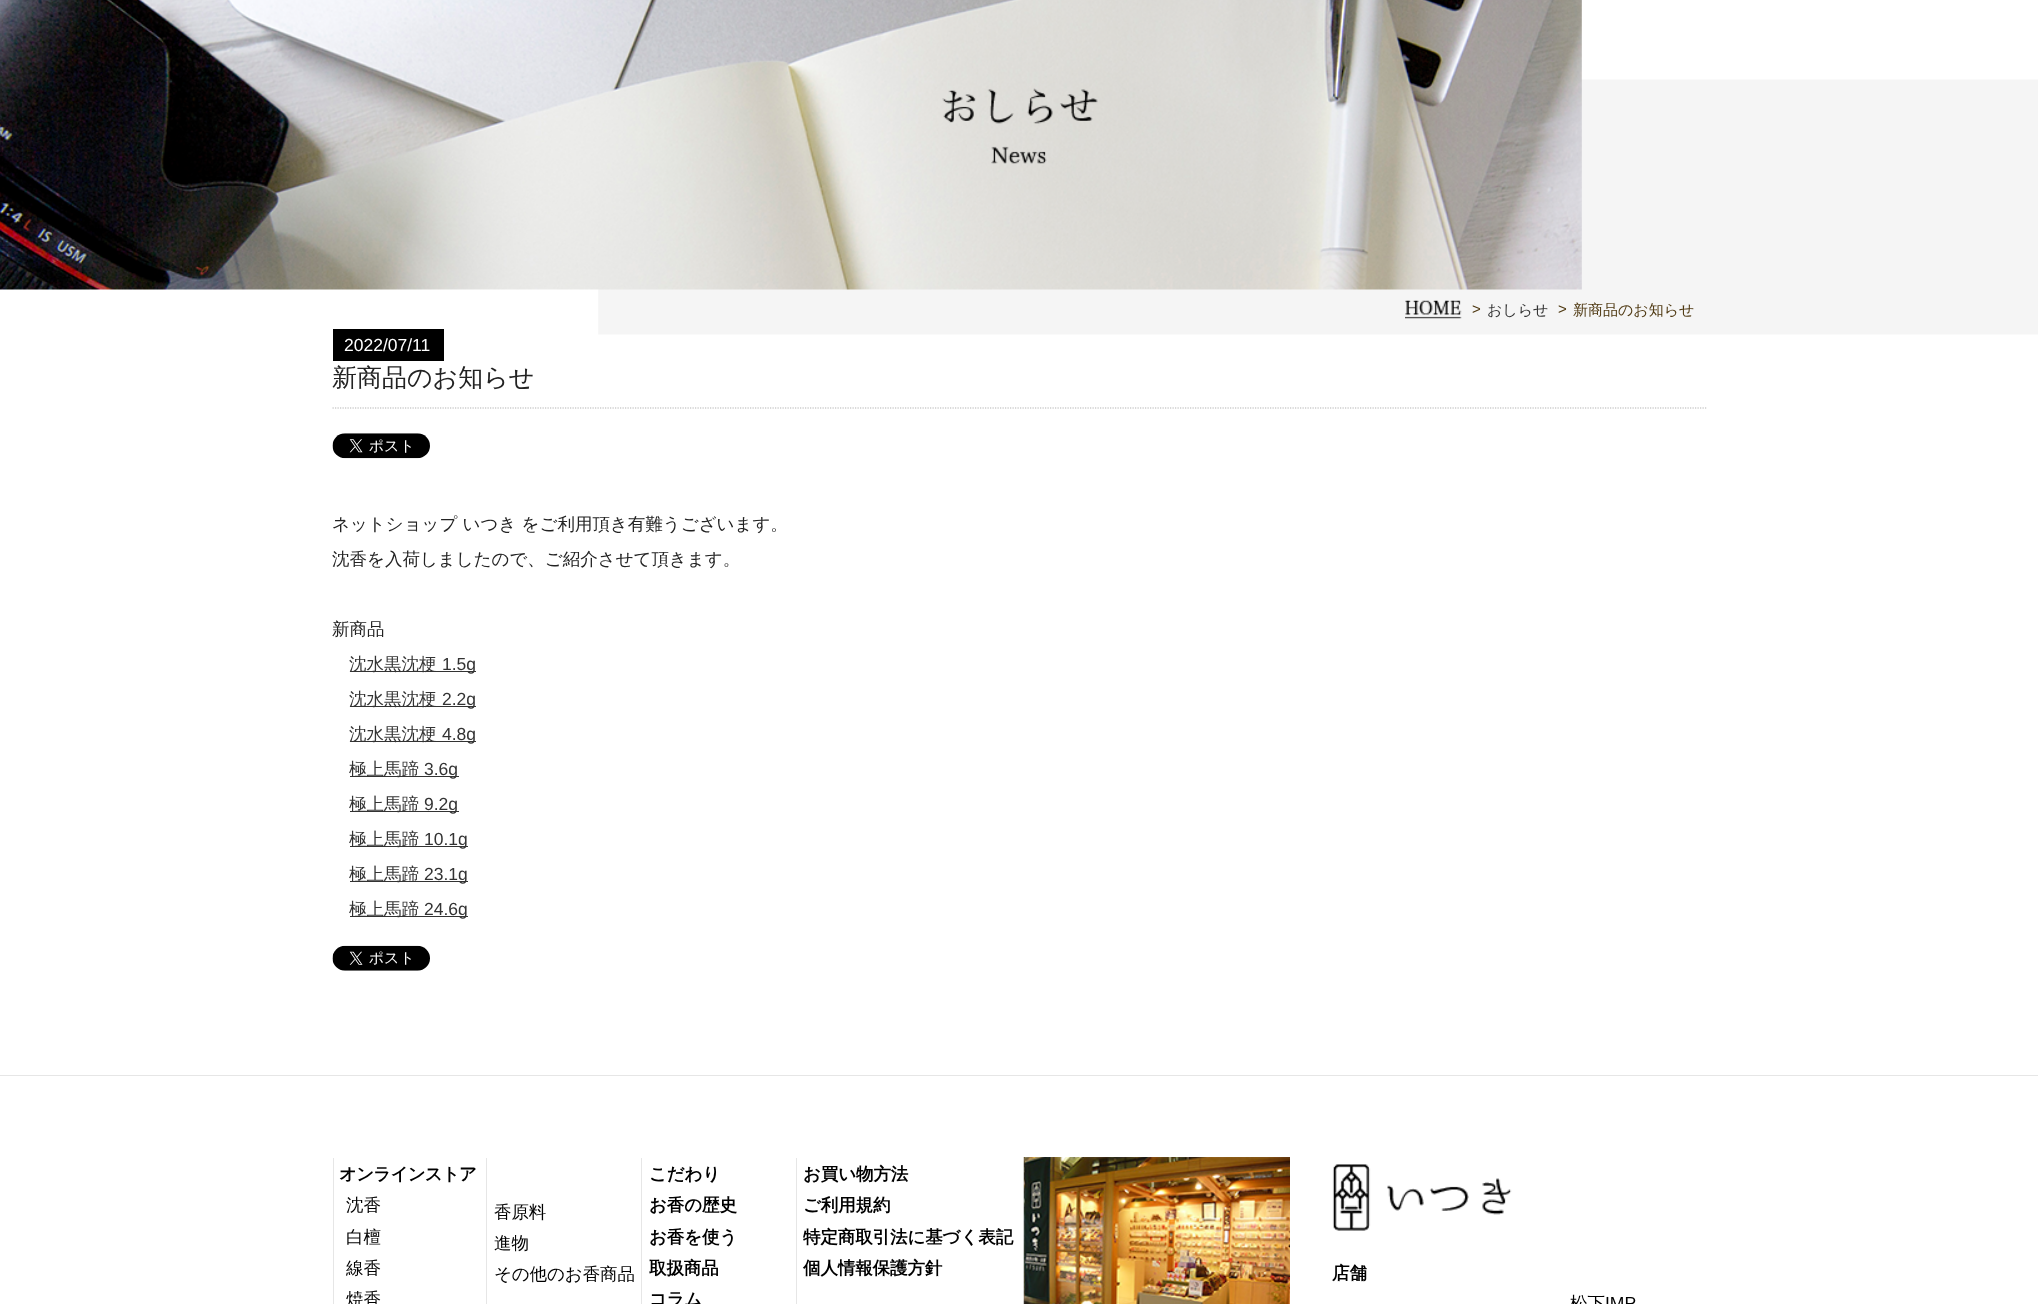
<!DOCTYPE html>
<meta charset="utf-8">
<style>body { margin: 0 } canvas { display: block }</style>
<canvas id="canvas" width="2038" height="1304"></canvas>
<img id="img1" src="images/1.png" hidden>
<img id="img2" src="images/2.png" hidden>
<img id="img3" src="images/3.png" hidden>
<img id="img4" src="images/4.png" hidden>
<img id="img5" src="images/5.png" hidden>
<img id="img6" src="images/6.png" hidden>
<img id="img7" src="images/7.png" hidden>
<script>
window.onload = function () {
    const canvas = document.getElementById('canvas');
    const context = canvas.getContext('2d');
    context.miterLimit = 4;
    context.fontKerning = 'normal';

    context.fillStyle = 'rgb(255, 255, 255)';
    context.fillRect(0, 0, 2038, 1304);
    context.fillStyle = 'rgb(0, 0, 0)';
    context.fillRect(333, 329, 111, 32);
    context.drawImage(document.getElementById('img1'), 0, 0, 2038, 335);
    context.drawImage(document.getElementById('img2'), 942, 88, 156, 76);
    context.drawImage(document.getElementById('img3'), 1405, 300, 57, 19);
    context.beginPath();
    context.moveTo(332.5, 408);
    context.lineTo(1707.5, 408);
    context.strokeStyle = 'rgb(179, 179, 179)';
    context.lineWidth = 1.2;
    context.setLineDash([1.25, 1.25]);
    context.stroke();
    context.drawImage(document.getElementById('img4'), 332, 433, 98, 26);
    context.fillStyle = 'rgb(51, 51, 51)';
    context.fillRect(350, 671, 126, 1);
    context.fillRect(350, 706, 126, 1);
    context.fillRect(350, 741, 126, 1);
    context.fillRect(350, 776, 109, 1);
    context.fillRect(350, 811, 109, 1);
    context.fillRect(350, 846, 118, 1);
    context.fillRect(350, 881, 118, 1);
    context.fillRect(350, 916, 118, 1);
    context.drawImage(document.getElementById('img5'), 332, 945, 98, 26);
    context.fillStyle = 'rgb(230, 230, 230)';
    context.fillRect(0, 1075, 2038, 1);
    context.fillRect(333, 1158, 1, 146);
    context.fillRect(486, 1158, 1, 146);
    context.fillRect(641, 1158, 1, 146);
    context.fillRect(796, 1158, 1, 146);
    context.drawImage(document.getElementById('img6'), 1023, 1157, 267, 147);
    context.drawImage(document.getElementById('img7'), 1332, 1164, 180, 67);
    context.font = '15px Liberation Sans';
    context.fillStyle = 'rgb(79, 57, 18)';
    context.fillText('>', 1472, 314);
    context.font = '500 15px WenQuanYi Zen Hei';
    context.fillStyle = 'rgb(51, 51, 51)';
    context.fillText('おしらせ', 1487, 315);
    context.font = '15px Liberation Sans';
    context.fillStyle = 'rgb(79, 57, 18)';
    context.fillText('>', 1558, 314);
    context.font = '500 15px WenQuanYi Zen Hei';
    context.fillText('新商品のお知らせ', 1573, 315);
    context.font = '17.5px Liberation Sans';
    context.fillStyle = 'rgb(255, 255, 255)';
    context.fillText('2022/07/11', 344, 351);
    context.font = '500 25px WenQuanYi Zen Hei';
    context.fillStyle = 'rgb(35, 35, 35)';
    context.fillText('新商品のお知らせ', 332, 386);
    context.font = '500 17.5px WenQuanYi Zen Hei';
    context.fillText('ネットショップ いつき をご利用頂き有難うございます。', 332, 530);
    context.fillText('沈香を入荷しましたので、ご紹介させて頂きます。', 332, 565);
    context.fillText('新商品', 332, 635);
    context.fillStyle = 'rgb(51, 51, 51)';
    context.fillText('沈水黒沈梗', 349, 670);
    context.font = '17.5px Liberation Sans';
    context.fillText('1.5g', 442, 670);
    context.font = '500 17.5px WenQuanYi Zen Hei';
    context.fillText('沈水黒沈梗', 349, 705);
    context.font = '17.5px Liberation Sans';
    context.fillText('2.2g', 442, 705);
    context.font = '500 17.5px WenQuanYi Zen Hei';
    context.fillText('沈水黒沈梗', 349, 740);
    context.font = '17.5px Liberation Sans';
    context.fillText('4.8g', 442, 740);
    context.font = '500 17.5px WenQuanYi Zen Hei';
    context.fillText('極上馬蹄', 349, 775);
    context.font = '17.5px Liberation Sans';
    context.fillText('3.6g', 424, 775);
    context.font = '500 17.5px WenQuanYi Zen Hei';
    context.fillText('極上馬蹄', 349, 810);
    context.font = '17.5px Liberation Sans';
    context.fillText('9.2g', 424, 810);
    context.font = '500 17.5px WenQuanYi Zen Hei';
    context.fillText('極上馬蹄', 349, 845);
    context.font = '17.5px Liberation Sans';
    context.fillText('10.1g', 424, 845);
    context.font = '500 17.5px WenQuanYi Zen Hei';
    context.fillText('極上馬蹄', 349, 880);
    context.font = '17.5px Liberation Sans';
    context.fillText('23.1g', 424, 880);
    context.font = '500 17.5px WenQuanYi Zen Hei';
    context.fillText('極上馬蹄', 349, 915);
    context.font = '17.5px Liberation Sans';
    context.fillText('24.6g', 424, 915);
    context.letterSpacing = '-0.75px';
    context.font = 'bold 17.5px WenQuanYi Zen Hei';
    context.fillStyle = 'rgb(0, 0, 0)';
    context.fillText('オンラインストア', 339, 1180);
    context.letterSpacing = '-0.1px';
    context.font = '500 17.5px WenQuanYi Zen Hei';
    context.fillText('沈香', 346, 1211);
    context.fillText('白檀', 346, 1243);
    context.fillText('線香', 346, 1274);
    context.fillText('焼香', 346, 1305);
    context.fillText('香原料', 494, 1218);
    context.fillText('進物', 494, 1249);
    context.fillText('その他のお香商品', 494, 1280);
    context.font = 'bold 17.5px WenQuanYi Zen Hei';
    context.fillText('こだわり', 649, 1180);
    context.fillText('お香の歴史', 649, 1211);
    context.fillText('お香を使う', 649, 1243);
    context.fillText('取扱商品', 649, 1274);
    context.fillText('コラム', 649, 1305);
    context.fillText('お買い物方法', 803, 1180);
    context.fillText('ご利用規約', 803, 1211);
    context.fillText('特定商取引法に基づく表記', 803, 1243);
    context.fillText('個人情報保護方針', 803, 1274);
    context.letterSpacing = '0px';
    context.fillText('店舗', 1332, 1279);
    context.font = '500 17.5px WenQuanYi Zen Hei';
    context.fillText('松下', 1570, 1309);
    context.font = '17.5px Liberation Sans';
    context.fillText('IMP', 1605, 1309);
};
</script>
